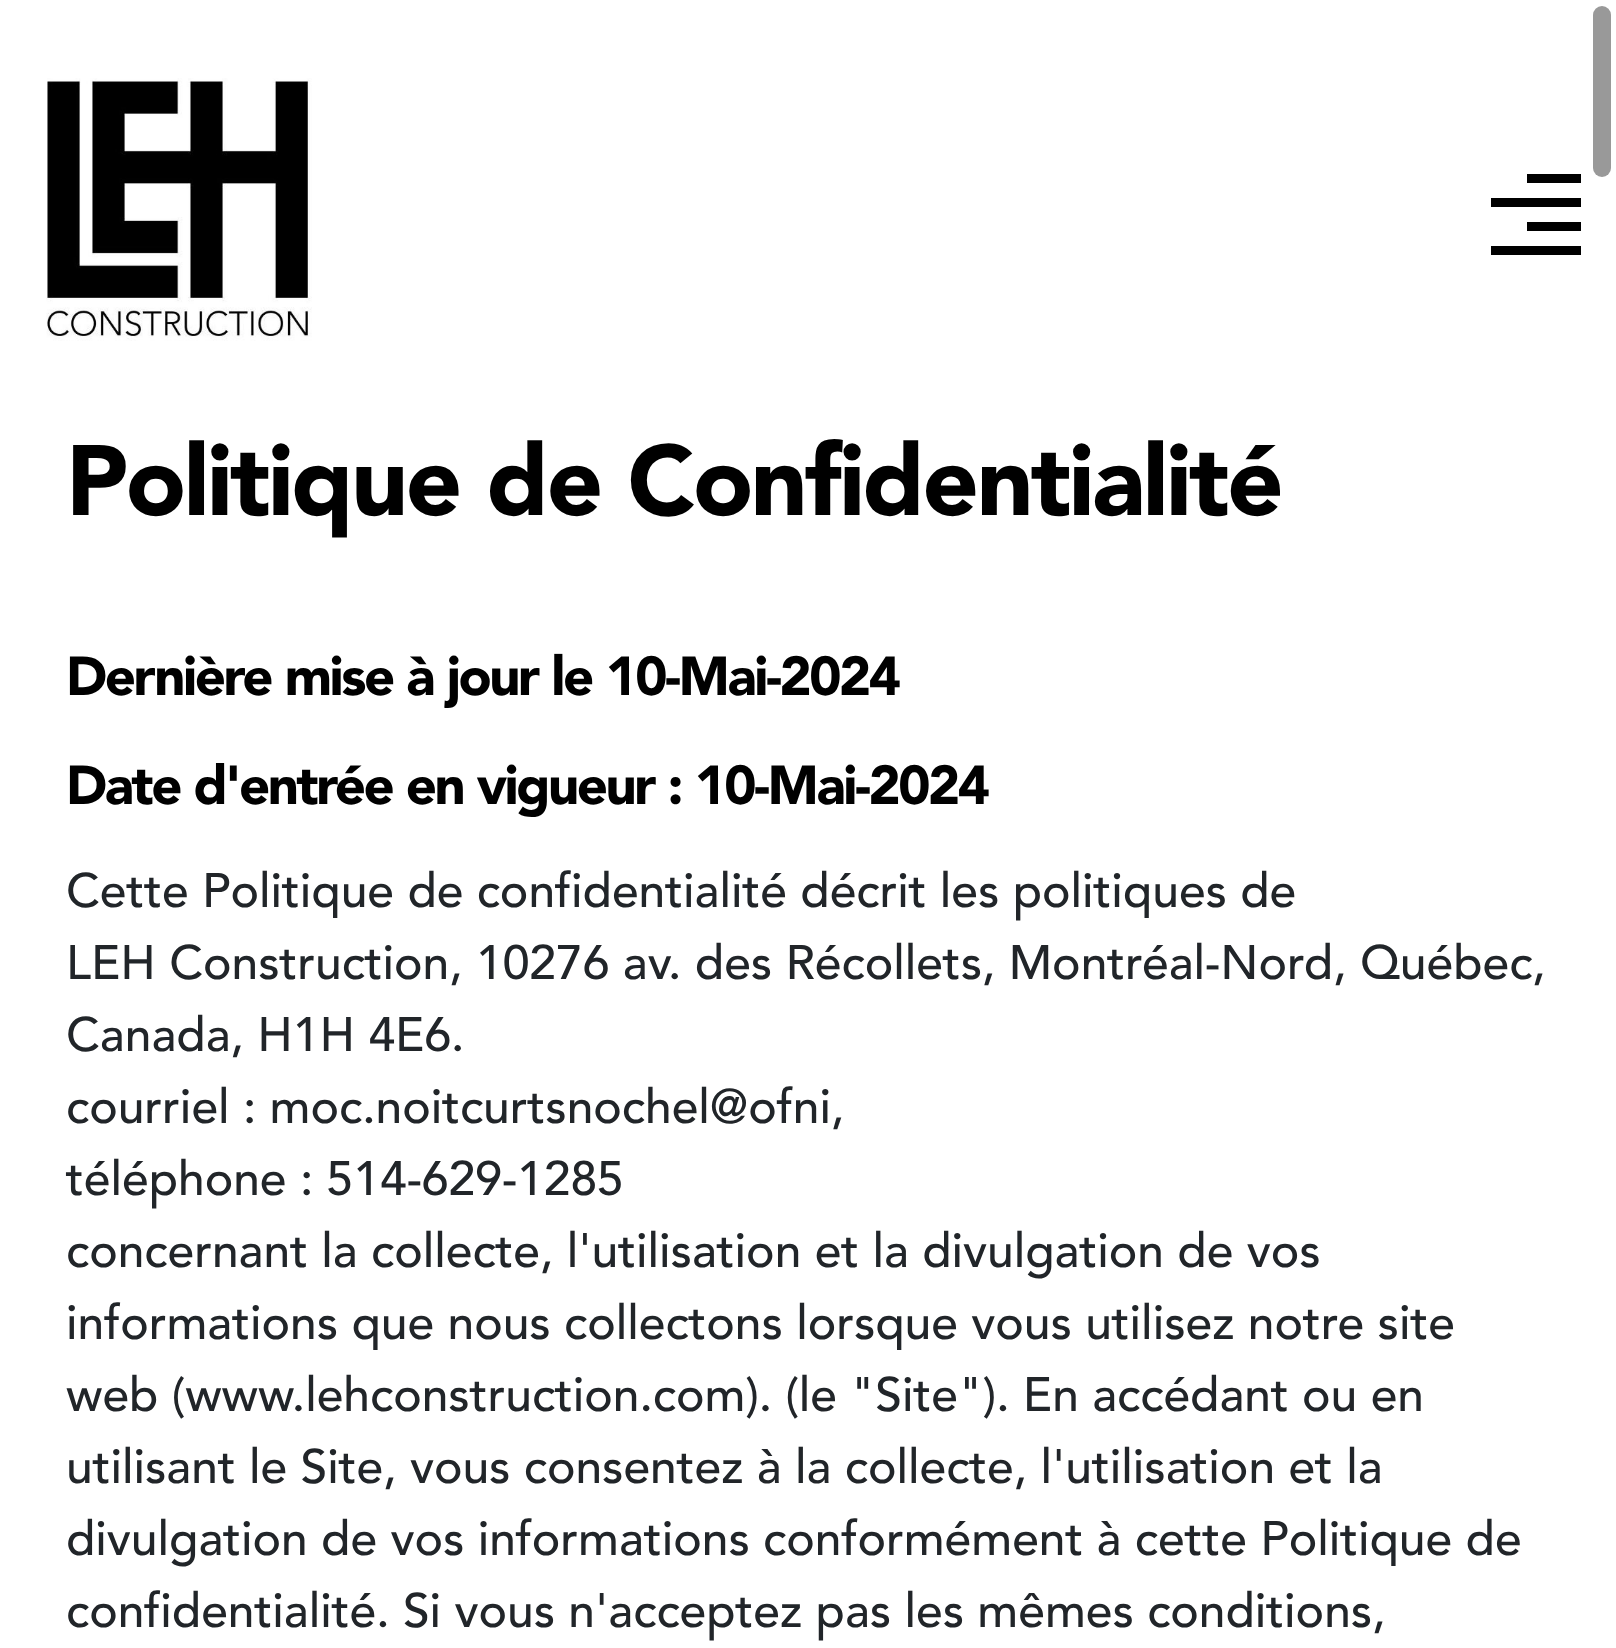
<!DOCTYPE html>
<meta charset="utf-8">
<style>body { margin: 0 } canvas { display: block }</style>
<canvas id="canvas" width="1616" height="1648"></canvas>
<img id="img1" src="images/1.png" hidden>
<script>
window.onload = function () {
    const canvas = document.getElementById('canvas');
    const context = canvas.getContext('2d');
    context.miterLimit = 4;
    context.fontKerning = 'normal';

    context.fillStyle = 'rgb(255, 255, 255)';
    context.fillRect(0, 0, 1616, 1648);
    context.fillStyle = 'rgb(153, 153, 153)';
    context.beginPath();
    context.roundRect(1593, 6, 18, 171, 9);
    context.fill();
    context.drawImage(document.getElementById('img1'), 46, 78, 266, 263);
    context.fillStyle = 'rgb(0, 0, 0)';
    context.fillRect(1527, 174, 54, 9);
    context.fillRect(1491, 198, 90, 9);
    context.fillRect(1527, 222, 54, 9);
    context.fillRect(1491, 246, 90, 9);
    context.letterSpacing = '-2.45px';
    context.font = '900 98.9px Avenir';
    context.fillText('Politique de Confidentialité', 66, 515);
    context.font = '900 54.4px Avenir';
    context.fillText('Dernière mise à jour le 10-Mai-2024', 66, 695);
    context.wordSpacing = '-0.25px';
    context.fillText('Date d\'entrée en vigueur : 10-Mai-2024', 66, 804);
    context.letterSpacing = '0px';
    context.wordSpacing = '0px';
    context.font = '500 48px Avenir';
    context.fillStyle = 'rgb(33, 37, 41)';
    context.fillText('Cette Politique de confidentialité décrit les politiques de', 66, 907);
    context.fillText('LEH Construction, 10276 av. des Récollets, Montréal-Nord, Québec,', 66, 979);
    context.fillText('Canada, H1H 4E6.', 66, 1051);
    context.fillText('courriel : moc.noitcurtsnochel@ofni,', 66, 1123);
    context.fillText('téléphone : 514-629-1285', 66, 1195);
    context.fillText('concernant la collecte, l\'utilisation et la divulgation de vos', 66, 1267);
    context.fillText('informations que nous collectons lorsque vous utilisez notre site', 66, 1339);
    context.fillText('web (www.lehconstruction.com). (le "Site"). En accédant ou en', 66, 1411);
    context.fillText('utilisant le Site, vous consentez à la collecte, l\'utilisation et la', 66, 1483);
    context.fillText('divulgation de vos informations conformément à cette Politique de', 66, 1555);
    context.fillText('confidentialité. Si vous n\'acceptez pas les mêmes conditions,', 66, 1627);
};
</script>
